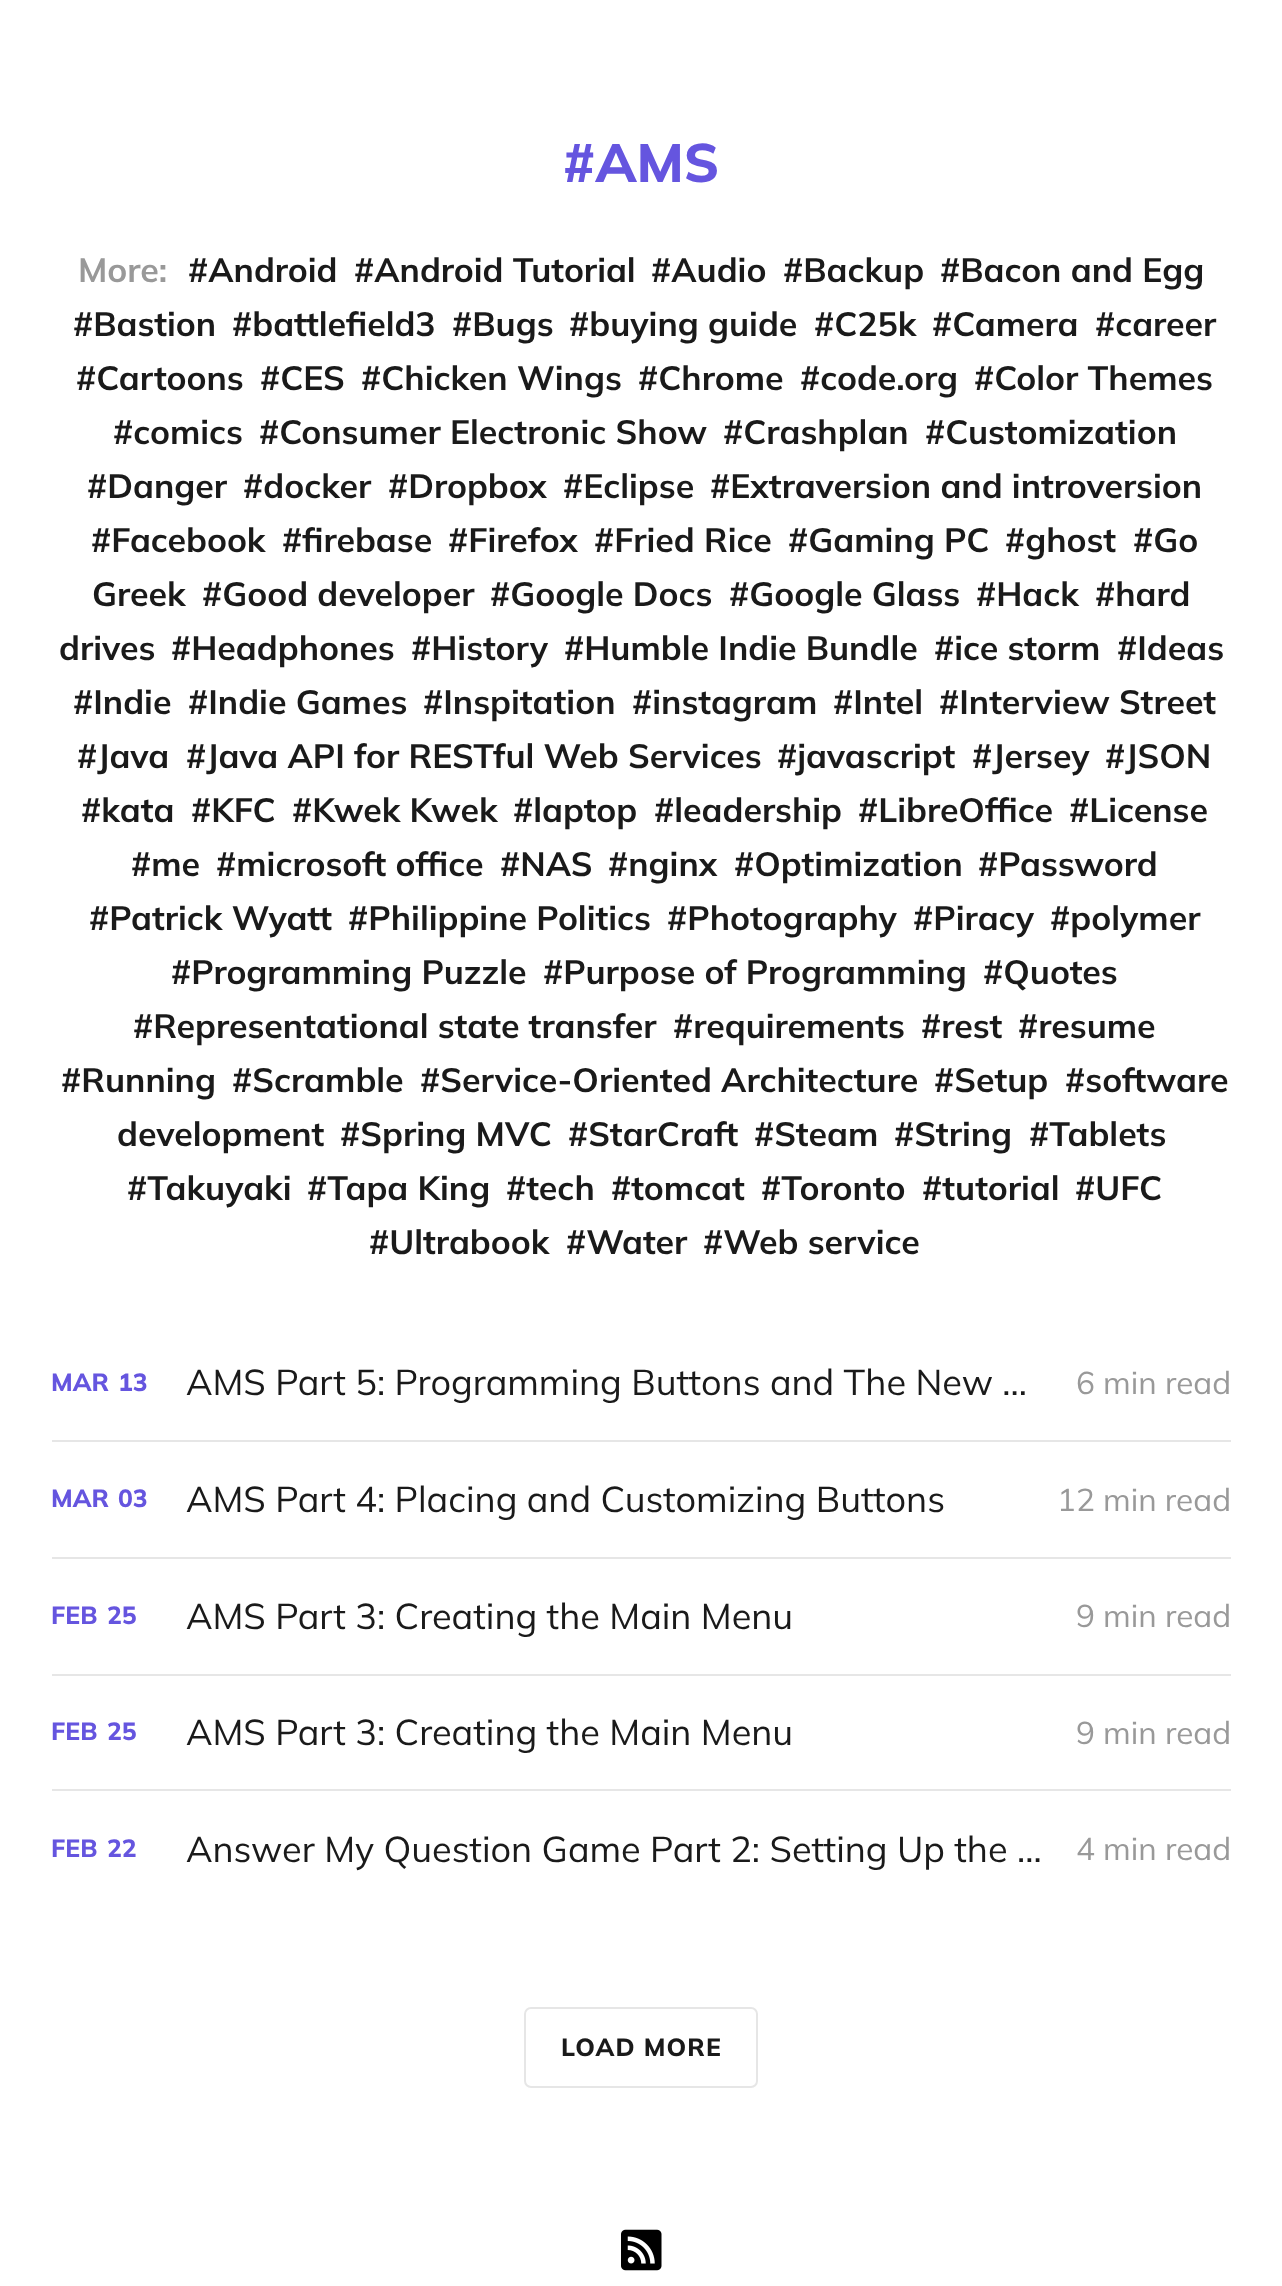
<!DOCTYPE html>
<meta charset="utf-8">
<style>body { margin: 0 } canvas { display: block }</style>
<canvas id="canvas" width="1282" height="2286"></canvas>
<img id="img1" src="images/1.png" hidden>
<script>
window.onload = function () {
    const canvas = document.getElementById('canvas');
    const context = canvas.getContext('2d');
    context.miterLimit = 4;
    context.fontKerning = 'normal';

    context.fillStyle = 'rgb(255, 255, 255)';
    context.fillRect(0, 0, 1282, 2286);
    context.fillStyle = 'rgb(230, 230, 230)';
    context.fillRect(52, 1440, 1179, 2);
    context.fillRect(52, 1557, 1179, 2);
    context.fillRect(52, 1674, 1179, 2);
    context.fillRect(52, 1789, 1179, 2);
    context.beginPath();
    context.roundRect(525, 2008, 232, 79, 6);
    context.strokeStyle = 'rgb(230, 230, 230)';
    context.lineWidth = 2;
    context.stroke();
    context.drawImage(document.getElementById('img1'), 621, 2229, 41, 42);
    context.font = '800 54px Mulish';
    context.fillStyle = 'rgb(101, 85, 223)';
    context.fillText('#AMS', 563, 182);
    context.font = 'bold 33.75px Mulish';
    context.fillStyle = 'rgb(153, 153, 153)';
    context.fillText('More:', 78, 282);
    context.fillStyle = 'rgb(26, 26, 26)';
    context.fillText('#Android', 188, 282);
    context.fillText('#Android Tutorial', 354, 282);
    context.fillText('#Audio', 651, 282);
    context.fillText('#Backup', 783, 282);
    context.fillText('#Bacon and Egg', 940, 282);
    context.fillText('#Bastion', 73, 336);
    context.fillText('#battlefield3', 232, 336);
    context.fillText('#Bugs', 452, 336);
    context.fillText('#buying guide', 569, 336);
    context.fillText('#C25k', 814, 336);
    context.fillText('#Camera', 932, 336);
    context.fillText('#career', 1095, 336);
    context.fillText('#Cartoons', 76, 390);
    context.fillText('#CES', 260, 390);
    context.fillText('#Chicken Wings', 361, 390);
    context.fillText('#Chrome', 638, 390);
    context.fillText('#code.org', 800, 390);
    context.fillText('#Color Themes', 974, 390);
    context.fillText('#comics', 113, 444);
    context.fillText('#Consumer Electronic Show', 259, 444);
    context.fillText('#Crashplan', 723, 444);
    context.fillText('#Customization', 925, 444);
    context.fillText('#Danger', 87, 498);
    context.fillText('#docker', 243, 498);
    context.fillText('#Dropbox', 388, 498);
    context.fillText('#Eclipse', 563, 498);
    context.fillText('#Extraversion and introversion', 710, 498);
    context.fillText('#Facebook', 91, 552);
    context.fillText('#firebase', 282, 552);
    context.fillText('#Firefox', 448, 552);
    context.fillText('#Fried Rice', 594, 552);
    context.fillText('#Gaming PC', 788, 552);
    context.fillText('#ghost', 1005, 552);
    context.fillText('#Go', 1133, 552);
    context.fillText('Greek', 92, 606);
    context.fillText('#Good developer', 202, 606);
    context.fillText('#Google Docs', 490, 606);
    context.fillText('#Google Glass', 729, 606);
    context.fillText('#Hack', 976, 606);
    context.fillText('#hard', 1095, 606);
    context.fillText('drives', 59, 660);
    context.fillText('#Headphones', 171, 660);
    context.fillText('#History', 411, 660);
    context.fillText('#Humble Indie Bundle', 564, 660);
    context.fillText('#ice storm', 934, 660);
    context.fillText('#Ideas', 1117, 660);
    context.fillText('#Indie', 73, 714);
    context.fillText('#Indie Games', 188, 714);
    context.fillText('#Inspitation', 423, 714);
    context.fillText('#instagram', 632, 714);
    context.fillText('#Intel', 833, 714);
    context.fillText('#Interview Street', 939, 714);
    context.fillText('#Java', 77, 768);
    context.fillText('#Java API for RESTful Web Services', 186, 768);
    context.fillText('#javascript', 777, 768);
    context.fillText('#Jersey', 972, 768);
    context.fillText('#JSON', 1105, 768);
    context.fillText('#kata', 81, 822);
    context.fillText('#KFC', 191, 822);
    context.fillText('#Kwek Kwek', 292, 822);
    context.fillText('#laptop', 513, 822);
    context.fillText('#leadership', 654, 822);
    context.fillText('#LibreOffice', 858, 822);
    context.fillText('#License', 1069, 822);
    context.fillText('#me', 131, 876);
    context.fillText('#microsoft office', 216, 876);
    context.fillText('#NAS', 500, 876);
    context.fillText('#nginx', 608, 876);
    context.fillText('#Optimization', 734, 876);
    context.fillText('#Password', 978, 876);
    context.fillText('#Patrick Wyatt', 89, 930);
    context.fillText('#Philippine Politics', 348, 930);
    context.fillText('#Photography', 667, 930);
    context.fillText('#Piracy', 913, 930);
    context.fillText('#polymer', 1050, 930);
    context.fillText('#Programming Puzzle', 171, 984);
    context.fillText('#Purpose of Programming', 543, 984);
    context.fillText('#Quotes', 983, 984);
    context.fillText('#Representational state transfer', 133, 1038);
    context.fillText('#requirements', 673, 1038);
    context.fillText('#rest', 921, 1038);
    context.fillText('#resume', 1018, 1038);
    context.fillText('#Running', 61, 1092);
    context.fillText('#Scramble', 232, 1092);
    context.fillText('#Service-Oriented Architecture', 420, 1092);
    context.fillText('#Setup', 934, 1092);
    context.fillText('#software', 1065, 1092);
    context.fillText('development', 117, 1146);
    context.fillText('#Spring MVC', 340, 1146);
    context.fillText('#StarCraft', 568, 1146);
    context.fillText('#Steam', 754, 1146);
    context.fillText('#String', 894, 1146);
    context.fillText('#Tablets', 1029, 1146);
    context.fillText('#Takuyaki', 127, 1200);
    context.fillText('#Tapa King', 307, 1200);
    context.fillText('#tech', 506, 1200);
    context.fillText('#tomcat', 611, 1200);
    context.fillText('#Toronto', 761, 1200);
    context.fillText('#tutorial', 922, 1200);
    context.fillText('#UFC', 1075, 1200);
    context.fillText('#Ultrabook', 369, 1254);
    context.fillText('#Water', 566, 1254);
    context.fillText('#Web service', 703, 1254);
    context.font = '800 24.75px Mulish';
    context.fillStyle = 'rgb(101, 85, 223)';
    context.fillText('MAR', 51, 1391);
    context.fillText('13', 118, 1391);
    context.font = '36px Mulish';
    context.fillStyle = 'rgb(26, 26, 26)';
    context.fillText('AMS Part 5: Programming Buttons and The New …', 186, 1395);
    context.font = '31.5px Mulish';
    context.fillStyle = 'rgb(153, 153, 153)';
    context.fillText('6 min read', 1076, 1394);
    context.font = '800 24.75px Mulish';
    context.fillStyle = 'rgb(101, 85, 223)';
    context.fillText('MAR', 51, 1507);
    context.fillText('03', 118, 1507);
    context.font = '36px Mulish';
    context.fillStyle = 'rgb(26, 26, 26)';
    context.fillText('AMS Part 4: Placing and Customizing Buttons', 186, 1512);
    context.font = '31.5px Mulish';
    context.fillStyle = 'rgb(153, 153, 153)';
    context.fillText('12 min read', 1057, 1511);
    context.font = '800 24.75px Mulish';
    context.fillStyle = 'rgb(101, 85, 223)';
    context.fillText('FEB', 51, 1624);
    context.fillText('25', 107, 1624);
    context.font = '36px Mulish';
    context.fillStyle = 'rgb(26, 26, 26)';
    context.fillText('AMS Part 3: Creating the Main Menu', 186, 1629);
    context.font = '31.5px Mulish';
    context.fillStyle = 'rgb(153, 153, 153)';
    context.fillText('9 min read', 1076, 1627);
    context.font = '800 24.75px Mulish';
    context.fillStyle = 'rgb(101, 85, 223)';
    context.fillText('FEB', 51, 1740);
    context.fillText('25', 107, 1740);
    context.font = '36px Mulish';
    context.fillStyle = 'rgb(26, 26, 26)';
    context.fillText('AMS Part 3: Creating the Main Menu', 186, 1745);
    context.font = '31.5px Mulish';
    context.fillStyle = 'rgb(153, 153, 153)';
    context.fillText('9 min read', 1076, 1744);
    context.font = '800 24.75px Mulish';
    context.fillStyle = 'rgb(101, 85, 223)';
    context.fillText('FEB', 51, 1857);
    context.fillText('22', 107, 1857);
    context.font = '36px Mulish';
    context.fillStyle = 'rgb(26, 26, 26)';
    context.fillText('Answer My Question Game Part 2: Setting Up the …', 186, 1862);
    context.font = '31.5px Mulish';
    context.fillStyle = 'rgb(153, 153, 153)';
    context.fillText('4 min read', 1076, 1860);
    context.letterSpacing = '1.1px';
    context.font = '800 24.75px Mulish';
    context.fillStyle = 'rgb(26, 26, 26)';
    context.fillText('LOAD MORE', 561, 2056);
};
</script>
